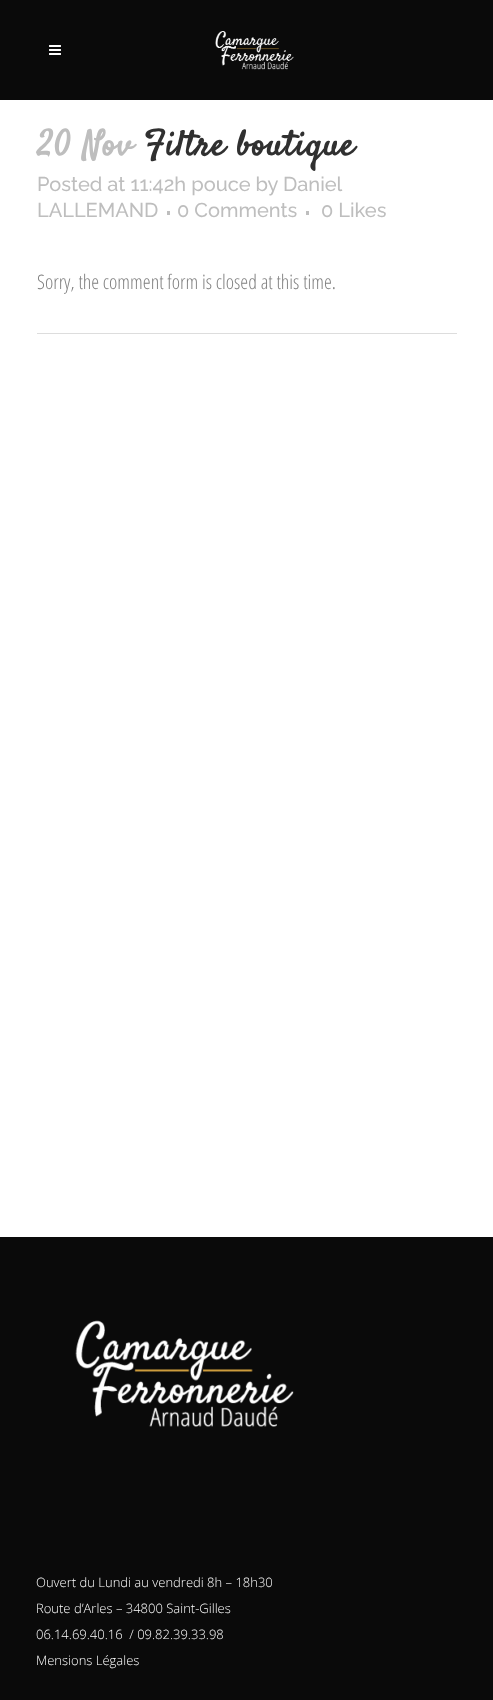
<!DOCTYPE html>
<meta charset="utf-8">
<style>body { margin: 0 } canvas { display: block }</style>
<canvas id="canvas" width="493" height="1700"></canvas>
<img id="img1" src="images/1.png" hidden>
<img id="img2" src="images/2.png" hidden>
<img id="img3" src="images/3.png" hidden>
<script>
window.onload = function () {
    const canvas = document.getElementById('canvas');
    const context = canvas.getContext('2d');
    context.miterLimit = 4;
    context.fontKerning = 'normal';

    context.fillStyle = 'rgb(255, 255, 255)';
    context.fillRect(0, 0, 493, 1700);
    context.fillStyle = 'rgb(10, 10, 10)';
    context.fillRect(0, 0, 493, 100);
    context.drawImage(document.getElementById('img1'), 49, 45, 12, 10);
    context.drawImage(document.getElementById('img2'), 215, 31, 79, 39);
    context.fillStyle = 'rgb(190, 190, 190)';
    context.fillRect(167, 211, 3, 4);
    context.fillRect(306, 211, 3, 4);
    context.fillStyle = 'rgb(221, 221, 221)';
    context.fillRect(37, 333, 420, 1);
    context.fillStyle = 'rgb(10, 10, 10)';
    context.fillRect(0, 1237, 493, 463);
    context.drawImage(document.getElementById('img3'), 75, 1320, 219, 107);
    context.letterSpacing = '1px';
    context.font = 'bold 35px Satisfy';
    context.fillStyle = 'rgb(190, 190, 190)';
    context.fillText('20 Nov', 37, 155);
    context.fillStyle = 'rgb(48, 48, 48)';
    context.fillText('Filtre boutique', 144, 155);
    context.letterSpacing = '0px';
    context.font = '500 20px Raleway';
    context.fillStyle = 'rgb(190, 190, 190)';
    context.fillText('Posted at 11:42h pouce by Daniel', 37, 191);
    context.fillText('LALLEMAND', 37, 217);
    context.fillText('0 Comments', 177, 217);
    context.fillText('0 Likes', 321, 217);
    context.font = '300 20px Open Sans Condensed';
    context.fillStyle = 'rgb(129, 129, 129)';
    context.fillText('Sorry, the comment form is closed at this time.', 37, 289);
    context.font = '300 13px Open Sans';
    context.fillStyle = 'rgb(255, 255, 255)';
    context.fillText('Ouvert du Lundi au vendredi 8h – 18h30', 36, 1587);
    context.fillText('Route d’Arles – 34800 Saint-Gilles', 36, 1613);
    context.fillText('06.14.69.40.16  / 09.82.39.33.98', 36, 1639);
    context.fillText('Mensions Légales', 36, 1665);
};
</script>
